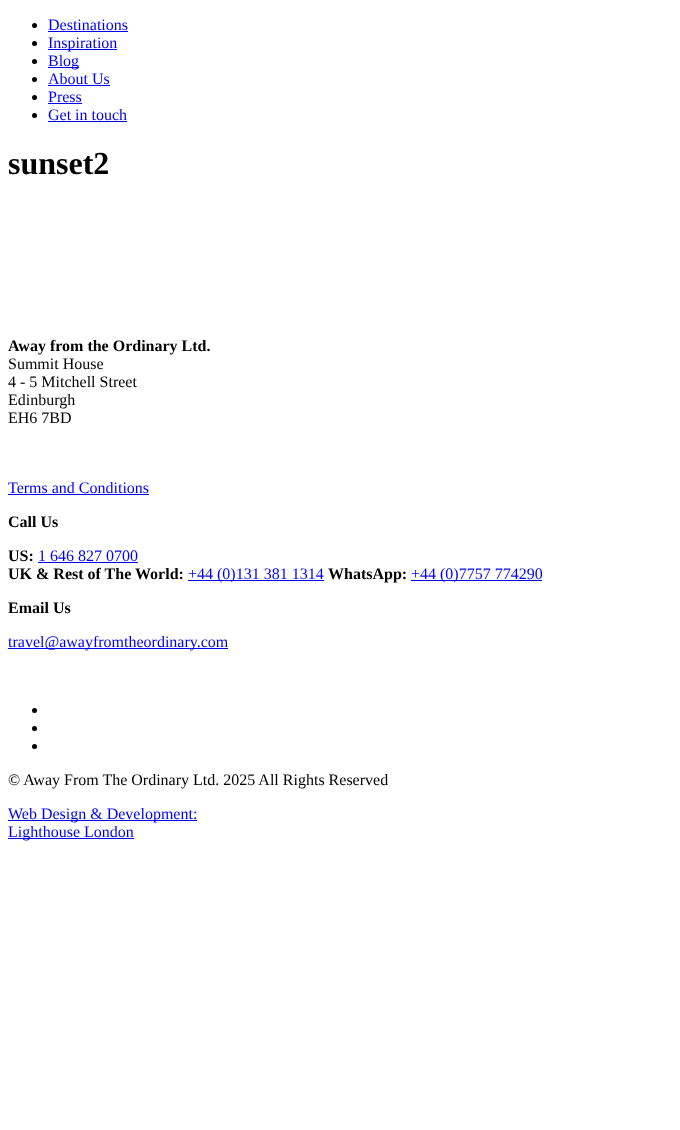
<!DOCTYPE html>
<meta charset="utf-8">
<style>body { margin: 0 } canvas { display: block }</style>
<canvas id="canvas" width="680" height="1130"></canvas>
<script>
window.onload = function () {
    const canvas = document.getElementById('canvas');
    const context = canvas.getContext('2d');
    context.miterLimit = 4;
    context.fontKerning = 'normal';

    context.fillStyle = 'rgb(255, 255, 255)';
    context.fillRect(0, 0, 680, 1130);
    context.fillStyle = 'rgb(0, 0, 0)';
    context.beginPath();
    context.arc(34.5, 25.5, 2.5, 0, 2 * Math.PI);
    context.fill();
    context.fillStyle = 'rgb(0, 0, 238)';
    context.fillRect(48, 31, 80, 1);
    context.fillStyle = 'rgb(0, 0, 0)';
    context.beginPath();
    context.arc(34.5, 43.5, 2.5, 0, 2 * Math.PI);
    context.fill();
    context.fillStyle = 'rgb(0, 0, 238)';
    context.fillRect(48, 49, 69, 1);
    context.fillStyle = 'rgb(0, 0, 0)';
    context.beginPath();
    context.arc(34.5, 61.5, 2.5, 0, 2 * Math.PI);
    context.fill();
    context.fillStyle = 'rgb(0, 0, 238)';
    context.fillRect(48, 67, 31, 1);
    context.fillStyle = 'rgb(0, 0, 0)';
    context.beginPath();
    context.arc(34.5, 79.5, 2.5, 0, 2 * Math.PI);
    context.fill();
    context.fillStyle = 'rgb(0, 0, 238)';
    context.fillRect(48, 85, 62, 1);
    context.fillStyle = 'rgb(0, 0, 0)';
    context.beginPath();
    context.arc(34.5, 97.5, 2.5, 0, 2 * Math.PI);
    context.fill();
    context.fillStyle = 'rgb(0, 0, 238)';
    context.fillRect(48, 103, 34, 1);
    context.fillStyle = 'rgb(0, 0, 0)';
    context.beginPath();
    context.arc(34.5, 115.5, 2.5, 0, 2 * Math.PI);
    context.fill();
    context.fillStyle = 'rgb(0, 0, 238)';
    context.fillRect(48, 121, 79, 1);
    context.fillRect(8, 494, 141, 1);
    context.fillRect(38, 562, 100, 1);
    context.fillRect(188, 580, 136, 1);
    context.fillRect(411, 580, 131, 1);
    context.fillRect(8, 648, 220, 1);
    context.fillStyle = 'rgb(0, 0, 0)';
    context.beginPath();
    context.arc(34.5, 710.5, 2.5, 0, 2 * Math.PI);
    context.fill();
    context.beginPath();
    context.arc(34.5, 728.5, 2.5, 0, 2 * Math.PI);
    context.fill();
    context.beginPath();
    context.arc(34.5, 746.5, 2.5, 0, 2 * Math.PI);
    context.fill();
    context.fillStyle = 'rgb(0, 0, 238)';
    context.fillRect(8, 820, 189, 1);
    context.fillRect(8, 838, 126, 1);
    context.font = '16px Liberation Serif';
    context.fillText('Destinations', 48, 30);
    context.fillText('Inspiration', 48, 48);
    context.fillText('Blog', 48, 66);
    context.fillText('About Us', 48, 84);
    context.fillText('Press', 48, 102);
    context.fillText('Get in touch', 48, 120);
    context.font = 'bold 32px Liberation Serif';
    context.fillStyle = 'rgb(0, 0, 0)';
    context.fillText('sunset2', 8, 174);
    context.font = 'bold 16px Liberation Serif';
    context.fillText('Away from the Ordinary Ltd.', 8, 351);
    context.font = '16px Liberation Serif';
    context.fillText('Summit House', 8, 369);
    context.fillText('4 - 5 Mitchell Street', 8, 387);
    context.fillText('Edinburgh', 8, 405);
    context.fillText('EH6 7BD', 8, 423);
    context.fillStyle = 'rgb(0, 0, 238)';
    context.fillText('Terms and Conditions', 8, 493);
    context.font = 'bold 16px Liberation Serif';
    context.fillStyle = 'rgb(0, 0, 0)';
    context.fillText('Call Us', 8, 527);
    context.fillText('US:', 8, 561);
    context.font = '16px Liberation Serif';
    context.fillStyle = 'rgb(0, 0, 238)';
    context.fillText('1 646 827 0700', 38, 561);
    context.font = 'bold 16px Liberation Serif';
    context.fillStyle = 'rgb(0, 0, 0)';
    context.fillText('UK & Rest of The World:', 8, 579);
    context.font = '16px Liberation Serif';
    context.fillStyle = 'rgb(0, 0, 238)';
    context.fillText('+44 (0)131 381 1314', 188, 579);
    context.font = 'bold 16px Liberation Serif';
    context.fillStyle = 'rgb(0, 0, 0)';
    context.fillText('WhatsApp:', 328, 579);
    context.font = '16px Liberation Serif';
    context.fillStyle = 'rgb(0, 0, 238)';
    context.fillText('+44 (0)7757 774290', 411, 579);
    context.font = 'bold 16px Liberation Serif';
    context.fillStyle = 'rgb(0, 0, 0)';
    context.fillText('Email Us', 8, 613);
    context.font = '16px Liberation Serif';
    context.fillStyle = 'rgb(0, 0, 238)';
    context.fillText('travel@awayfromtheordinary.com', 8, 647);
    context.fillStyle = 'rgb(0, 0, 0)';
    context.fillText('© Away From The Ordinary Ltd. 2025 All Rights Reserved', 8, 785);
    context.fillStyle = 'rgb(0, 0, 238)';
    context.fillText('Web Design & Development:', 8, 819);
    context.fillText('Lighthouse London', 8, 837);
};
</script>
